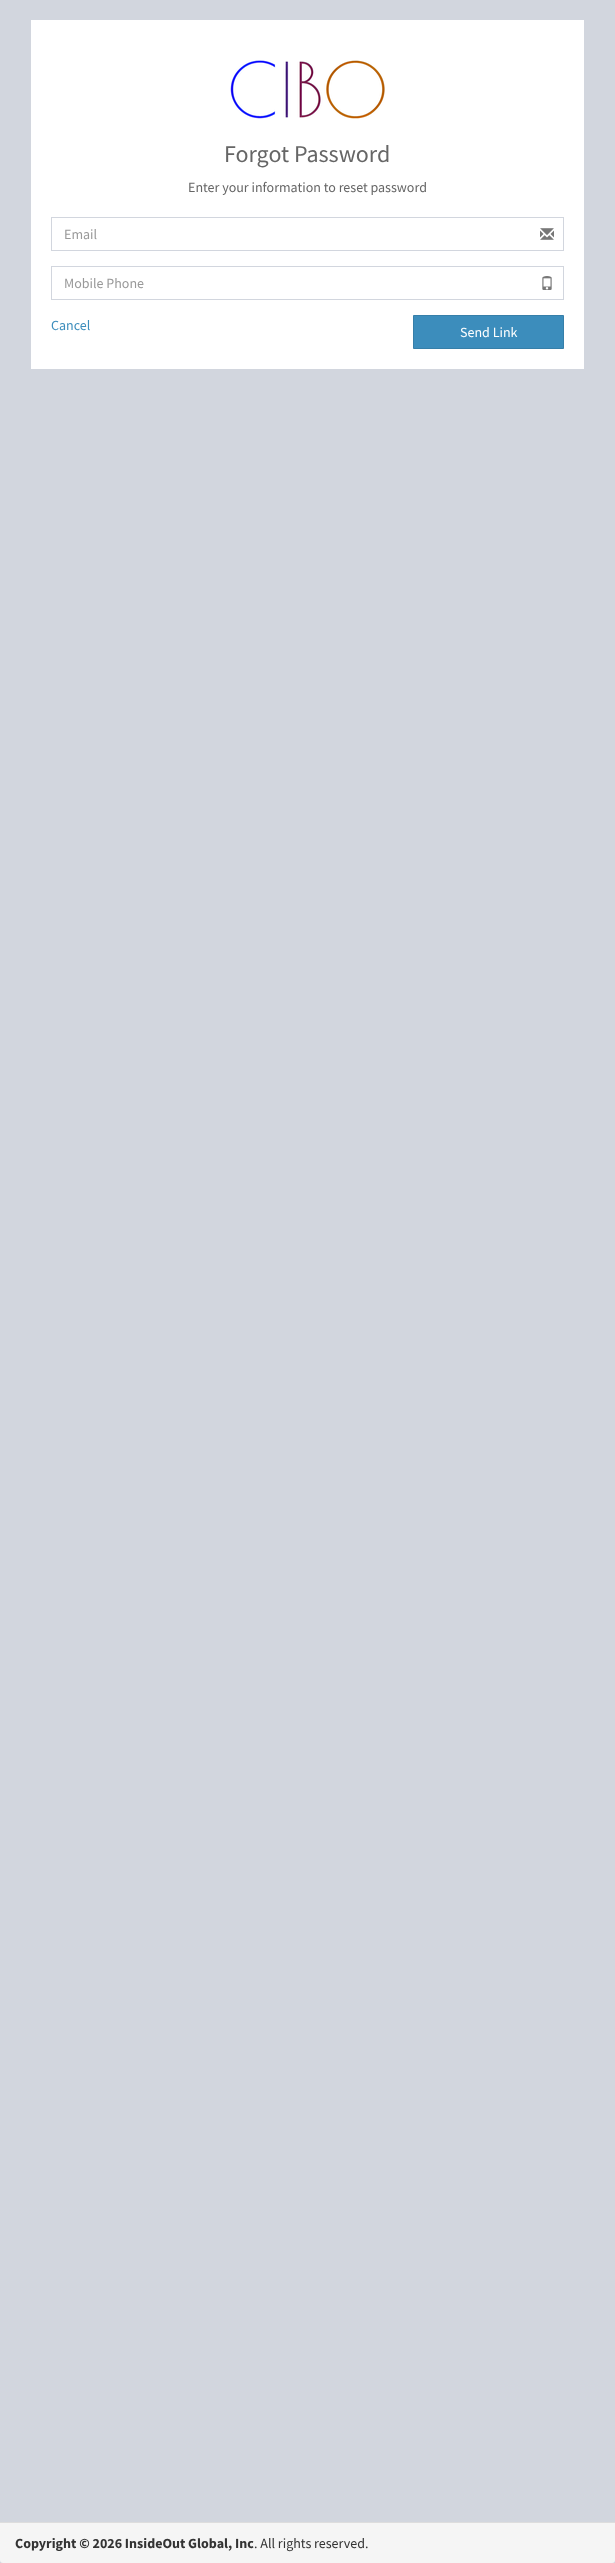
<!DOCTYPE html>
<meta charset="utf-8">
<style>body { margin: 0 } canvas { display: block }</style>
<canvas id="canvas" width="615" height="2563"></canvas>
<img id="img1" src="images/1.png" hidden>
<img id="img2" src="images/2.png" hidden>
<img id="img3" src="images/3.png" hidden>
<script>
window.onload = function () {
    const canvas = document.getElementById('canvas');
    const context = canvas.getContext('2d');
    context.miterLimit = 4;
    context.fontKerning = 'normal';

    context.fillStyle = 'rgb(210, 214, 222)';
    context.fillRect(0, 0, 615, 2563);
    context.fillStyle = 'rgb(255, 255, 255)';
    context.fillRect(31, 20, 553, 349);
    context.drawImage(document.getElementById('img1'), 230, 60, 155, 59);
    context.strokeStyle = 'rgb(210, 214, 222)';
    context.strokeRect(51.5, 217.5, 512, 33);
    context.drawImage(document.getElementById('img2'), 540, 228, 14, 12);
    context.strokeRect(51.5, 266.5, 512, 33);
    context.drawImage(document.getElementById('img3'), 542, 276, 10, 14);
    context.fillStyle = 'rgb(60, 141, 188)';
    context.beginPath();
    context.rect(413.5, 315.5, 150, 33);
    context.fill();
    context.strokeStyle = 'rgb(54, 127, 169)';
    context.stroke();
    context.fillStyle = 'rgb(245, 245, 245)';
    context.beginPath();
    context.roundRect(0, 2522, 615, 41, [0, 0, 3, 3]);
    context.fill();
    context.fillStyle = 'rgb(221, 221, 221)';
    context.fillRect(0, 2522, 615, 1);
    context.font = '24px Source Sans Pro';
    context.fillStyle = 'rgb(102, 102, 102)';
    context.fillText('Forgot Password', 224, 162);
    context.font = '14px Source Sans Pro';
    context.fillText('Enter your information to reset password', 188, 192);
    context.fillStyle = 'rgb(153, 153, 153)';
    context.fillText('Email', 64, 239);
    context.fillText('Mobile Phone', 64, 288);
    context.fillStyle = 'rgb(60, 141, 188)';
    context.fillText('Cancel', 51, 330);
    context.fillStyle = 'rgb(255, 255, 255)';
    context.fillText('Send Link', 460, 337);
    context.font = 'bold 14px Source Sans Pro';
    context.fillStyle = 'rgb(51, 51, 51)';
    context.fillText('Copyright © 2026 InsideOut Global, Inc', 15, 2548);
    context.font = '14px Source Sans Pro';
    context.fillText('. All rights reserved.', 254, 2548);
};
</script>
